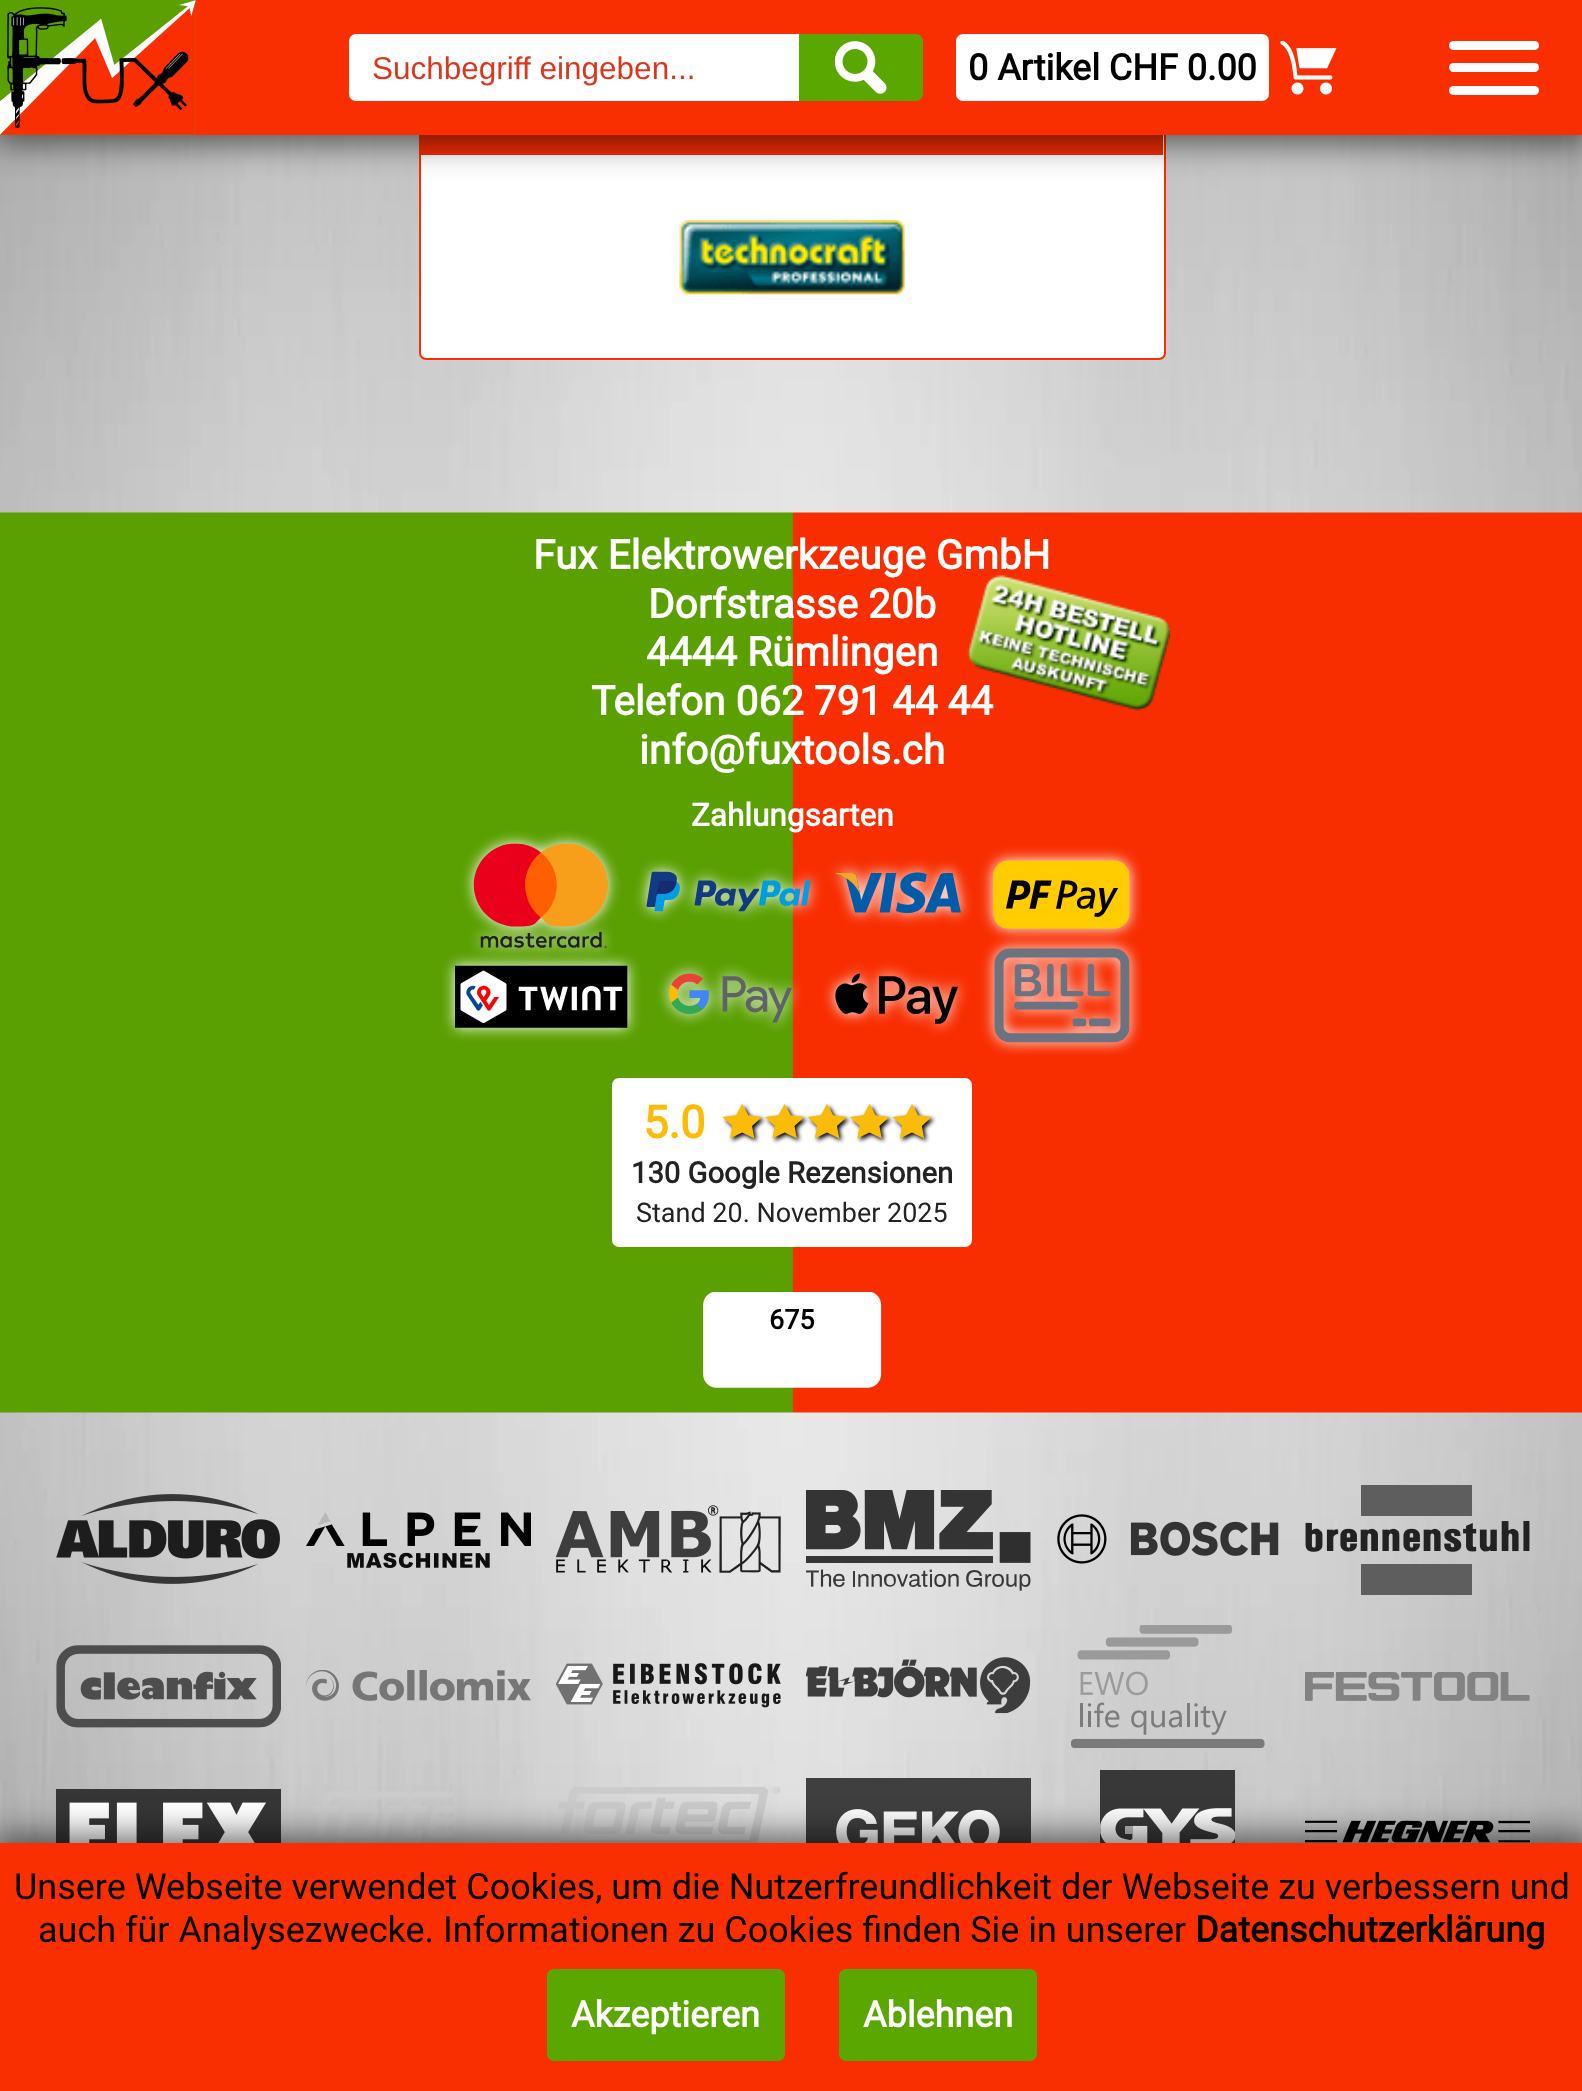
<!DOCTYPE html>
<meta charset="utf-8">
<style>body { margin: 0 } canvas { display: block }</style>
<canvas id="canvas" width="1582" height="2091"></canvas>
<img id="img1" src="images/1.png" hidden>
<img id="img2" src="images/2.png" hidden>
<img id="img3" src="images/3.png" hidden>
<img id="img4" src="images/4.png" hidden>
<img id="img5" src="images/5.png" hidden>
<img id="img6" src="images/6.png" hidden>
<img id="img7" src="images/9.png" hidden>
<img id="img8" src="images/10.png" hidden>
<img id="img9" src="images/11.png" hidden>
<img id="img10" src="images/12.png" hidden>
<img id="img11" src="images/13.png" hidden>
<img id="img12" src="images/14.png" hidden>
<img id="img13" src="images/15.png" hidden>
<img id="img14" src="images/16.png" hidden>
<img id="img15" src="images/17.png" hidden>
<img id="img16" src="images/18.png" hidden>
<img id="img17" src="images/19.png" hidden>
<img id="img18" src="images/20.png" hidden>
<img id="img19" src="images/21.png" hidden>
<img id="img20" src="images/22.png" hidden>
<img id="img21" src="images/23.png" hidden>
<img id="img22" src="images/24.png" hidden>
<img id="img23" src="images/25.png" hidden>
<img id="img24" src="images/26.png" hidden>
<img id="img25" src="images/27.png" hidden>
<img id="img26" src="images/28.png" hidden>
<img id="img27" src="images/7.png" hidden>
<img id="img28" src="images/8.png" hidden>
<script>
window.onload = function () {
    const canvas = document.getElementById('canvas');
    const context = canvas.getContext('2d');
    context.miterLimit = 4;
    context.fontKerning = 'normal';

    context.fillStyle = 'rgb(255, 255, 255)';
    context.fillRect(0, 0, 1582, 2091);
    context.drawImage(document.getElementById('img1'), 0, 135, 1582, 1708);
    context.beginPath();
    context.roundRect(420, 87, 745, 272, 6);
    context.fill();
    context.strokeStyle = 'rgb(249, 47, 1)';
    context.lineWidth = 2;
    context.stroke();
    context.fillStyle = 'rgb(249, 47, 1)';
    context.fillRect(421, 135, 742, 20);
    context.fillStyle = 'rgba(0, 0, 0, 0.6)';
    context.filter = 'blur(17px)';
    context.beginPath();
    context.rect(-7, -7, 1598, 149);
    context.fill();
    context.filter = 'none';
    context.fillStyle = 'rgb(249, 47, 1)';
    context.fillRect(196, 0, 1386, 135);
    context.drawImage(document.getElementById('img2'), 0, 0, 196, 135);
    context.fillStyle = 'rgb(255, 255, 255)';
    context.beginPath();
    context.roundRect(349, 34, 450, 67, [7, 0, 0, 7]);
    context.fill();
    context.fillStyle = 'rgb(90, 167, 1)';
    context.beginPath();
    context.roundRect(799, 34, 124, 67, [0, 7, 7, 0]);
    context.fill();
    context.drawImage(document.getElementById('img3'), 835, 41, 52, 53);
    context.fillStyle = 'rgb(255, 255, 255)';
    context.beginPath();
    context.roundRect(956, 34, 313, 67, 7);
    context.fill();
    context.drawImage(document.getElementById('img4'), 1280, 41, 57, 54);
    context.beginPath();
    context.roundRect(1449, 63, 90, 9, 4.5);
    context.fill();
    context.beginPath();
    context.roundRect(1449, 41, 90, 9, 4.5);
    context.fill();
    context.beginPath();
    context.roundRect(1449, 86, 90, 9, 4.5);
    context.fill();
    context.drawImage(document.getElementById('img5'), 679, 220, 226, 75);
    context.drawImage(document.getElementById('img6'), 0, 512, 1582, 901);
    context.beginPath();
    context.roundRect(612, 1078, 360, 169, 7);
    context.fill();
    context.drawImage(document.getElementById('img7'), 722, 1103, 215, 41);
    context.drawImage(document.getElementById('img8'), 703, 1292, 179, 96);
    context.drawImage(document.getElementById('img9'), 56, 1494, 224, 90);
    context.drawImage(document.getElementById('img10'), 306, 1512, 225, 56);
    context.drawImage(document.getElementById('img11'), 556, 1505, 225, 68);
    context.drawImage(document.getElementById('img12'), 806, 1490, 225, 101);
    context.drawImage(document.getElementById('img13'), 1057, 1514, 222, 50);
    context.drawImage(document.getElementById('img14'), 1305, 1485, 225, 110);
    context.drawImage(document.getElementById('img15'), 56, 1645, 225, 83);
    context.drawImage(document.getElementById('img16'), 306, 1670, 225, 31);
    context.drawImage(document.getElementById('img17'), 556, 1663, 225, 45);
    context.drawImage(document.getElementById('img18'), 806, 1657, 225, 57);
    context.drawImage(document.getElementById('img19'), 1071, 1625, 194, 123);
    context.drawImage(document.getElementById('img20'), 1305, 1672, 225, 29);
    context.drawImage(document.getElementById('img21'), 56, 1789, 225, 54);
    context.drawImage(document.getElementById('img22'), 313, 1791, 140, 47);
    context.drawImage(document.getElementById('img23'), 557, 1787, 223, 56);
    context.drawImage(document.getElementById('img24'), 806, 1778, 225, 65);
    context.drawImage(document.getElementById('img25'), 1100, 1770, 135, 73);
    context.drawImage(document.getElementById('img26'), 1305, 1820, 225, 23);
    context.fillStyle = 'rgba(0, 0, 0, 0.6)';
    context.filter = 'blur(17px)';
    context.beginPath();
    context.rect(-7, 1836, 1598, 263);
    context.fill();
    context.filter = 'none';
    context.fillStyle = 'rgb(249, 47, 1)';
    context.fillRect(0, 1843, 1582, 248);
    context.fillStyle = 'rgb(90, 167, 1)';
    context.beginPath();
    context.roundRect(548, 1970, 236, 90, 6);
    context.fill();
    context.strokeStyle = 'rgb(90, 167, 1)';
    context.stroke();
    context.beginPath();
    context.roundRect(840, 1970, 196, 90, 6);
    context.fill();
    context.stroke();
    context.font = '31.5px Liberation Sans';
    context.fillStyle = 'rgb(220, 54, 29)';
    context.fillText('Suchbegriff eingeben...', 372, 79);
    context.font = 'bold 36px Roboto';
    context.fillStyle = 'rgb(0, 0, 0)';
    context.fillText('0 Artikel CHF 0.00', 968, 80);
    context.font = 'bold 40.5px Roboto';
    context.fillStyle = 'rgb(255, 255, 255)';
    context.fillText('Fux Elektrowerkzeuge GmbH', 533, 569);
    context.fillText('Dorfstrasse 20b', 648, 618);
    context.fillText('4444 Rümlingen', 646, 666);
    context.fillText('Telefon 062 791 44 44', 591, 715);
    context.drawImage(document.getElementById('img27'), 967, 575, 203, 136);
    context.fillText('info@fuxtools.ch', 639, 764);
    context.font = 'bold 31.5px Roboto';
    context.fillText('Zahlungsarten', 691, 826);
    context.drawImage(document.getElementById('img28'), 442, 831, 700, 224);
    context.font = 'bold 45px Roboto';
    context.fillStyle = 'rgb(251, 188, 9)';
    context.fillText('5.0', 643, 1138);
    context.font = 'bold 29.25px Roboto';
    context.fillStyle = 'rgb(35, 35, 35)';
    context.fillText('130 Google Rezensionen', 631, 1183);
    context.font = '27px Roboto';
    context.fillText('Stand 20. November 2025', 636, 1222);
    context.font = 'bold 27px Roboto';
    context.fillStyle = 'rgb(0, 0, 0)';
    context.fillText('675', 769, 1329);
    context.font = '36px Roboto';
    context.fillText('Unsere Webseite verwendet Cookies, um die Nutzerfreundlichkeit der Webseite zu verbessern und', 14, 1899);
    context.fillText('auch für Analysezwecke. Informationen zu Cookies finden Sie in unserer', 38, 1942);
    context.font = 'bold 36px Roboto';
    context.fillText('Datenschutzerklärung', 1195, 1942);
    context.fillStyle = 'rgb(255, 255, 255)';
    context.fillText('Akzeptieren', 571, 2027);
    context.fillText('Ablehnen', 863, 2027);
};
</script>
